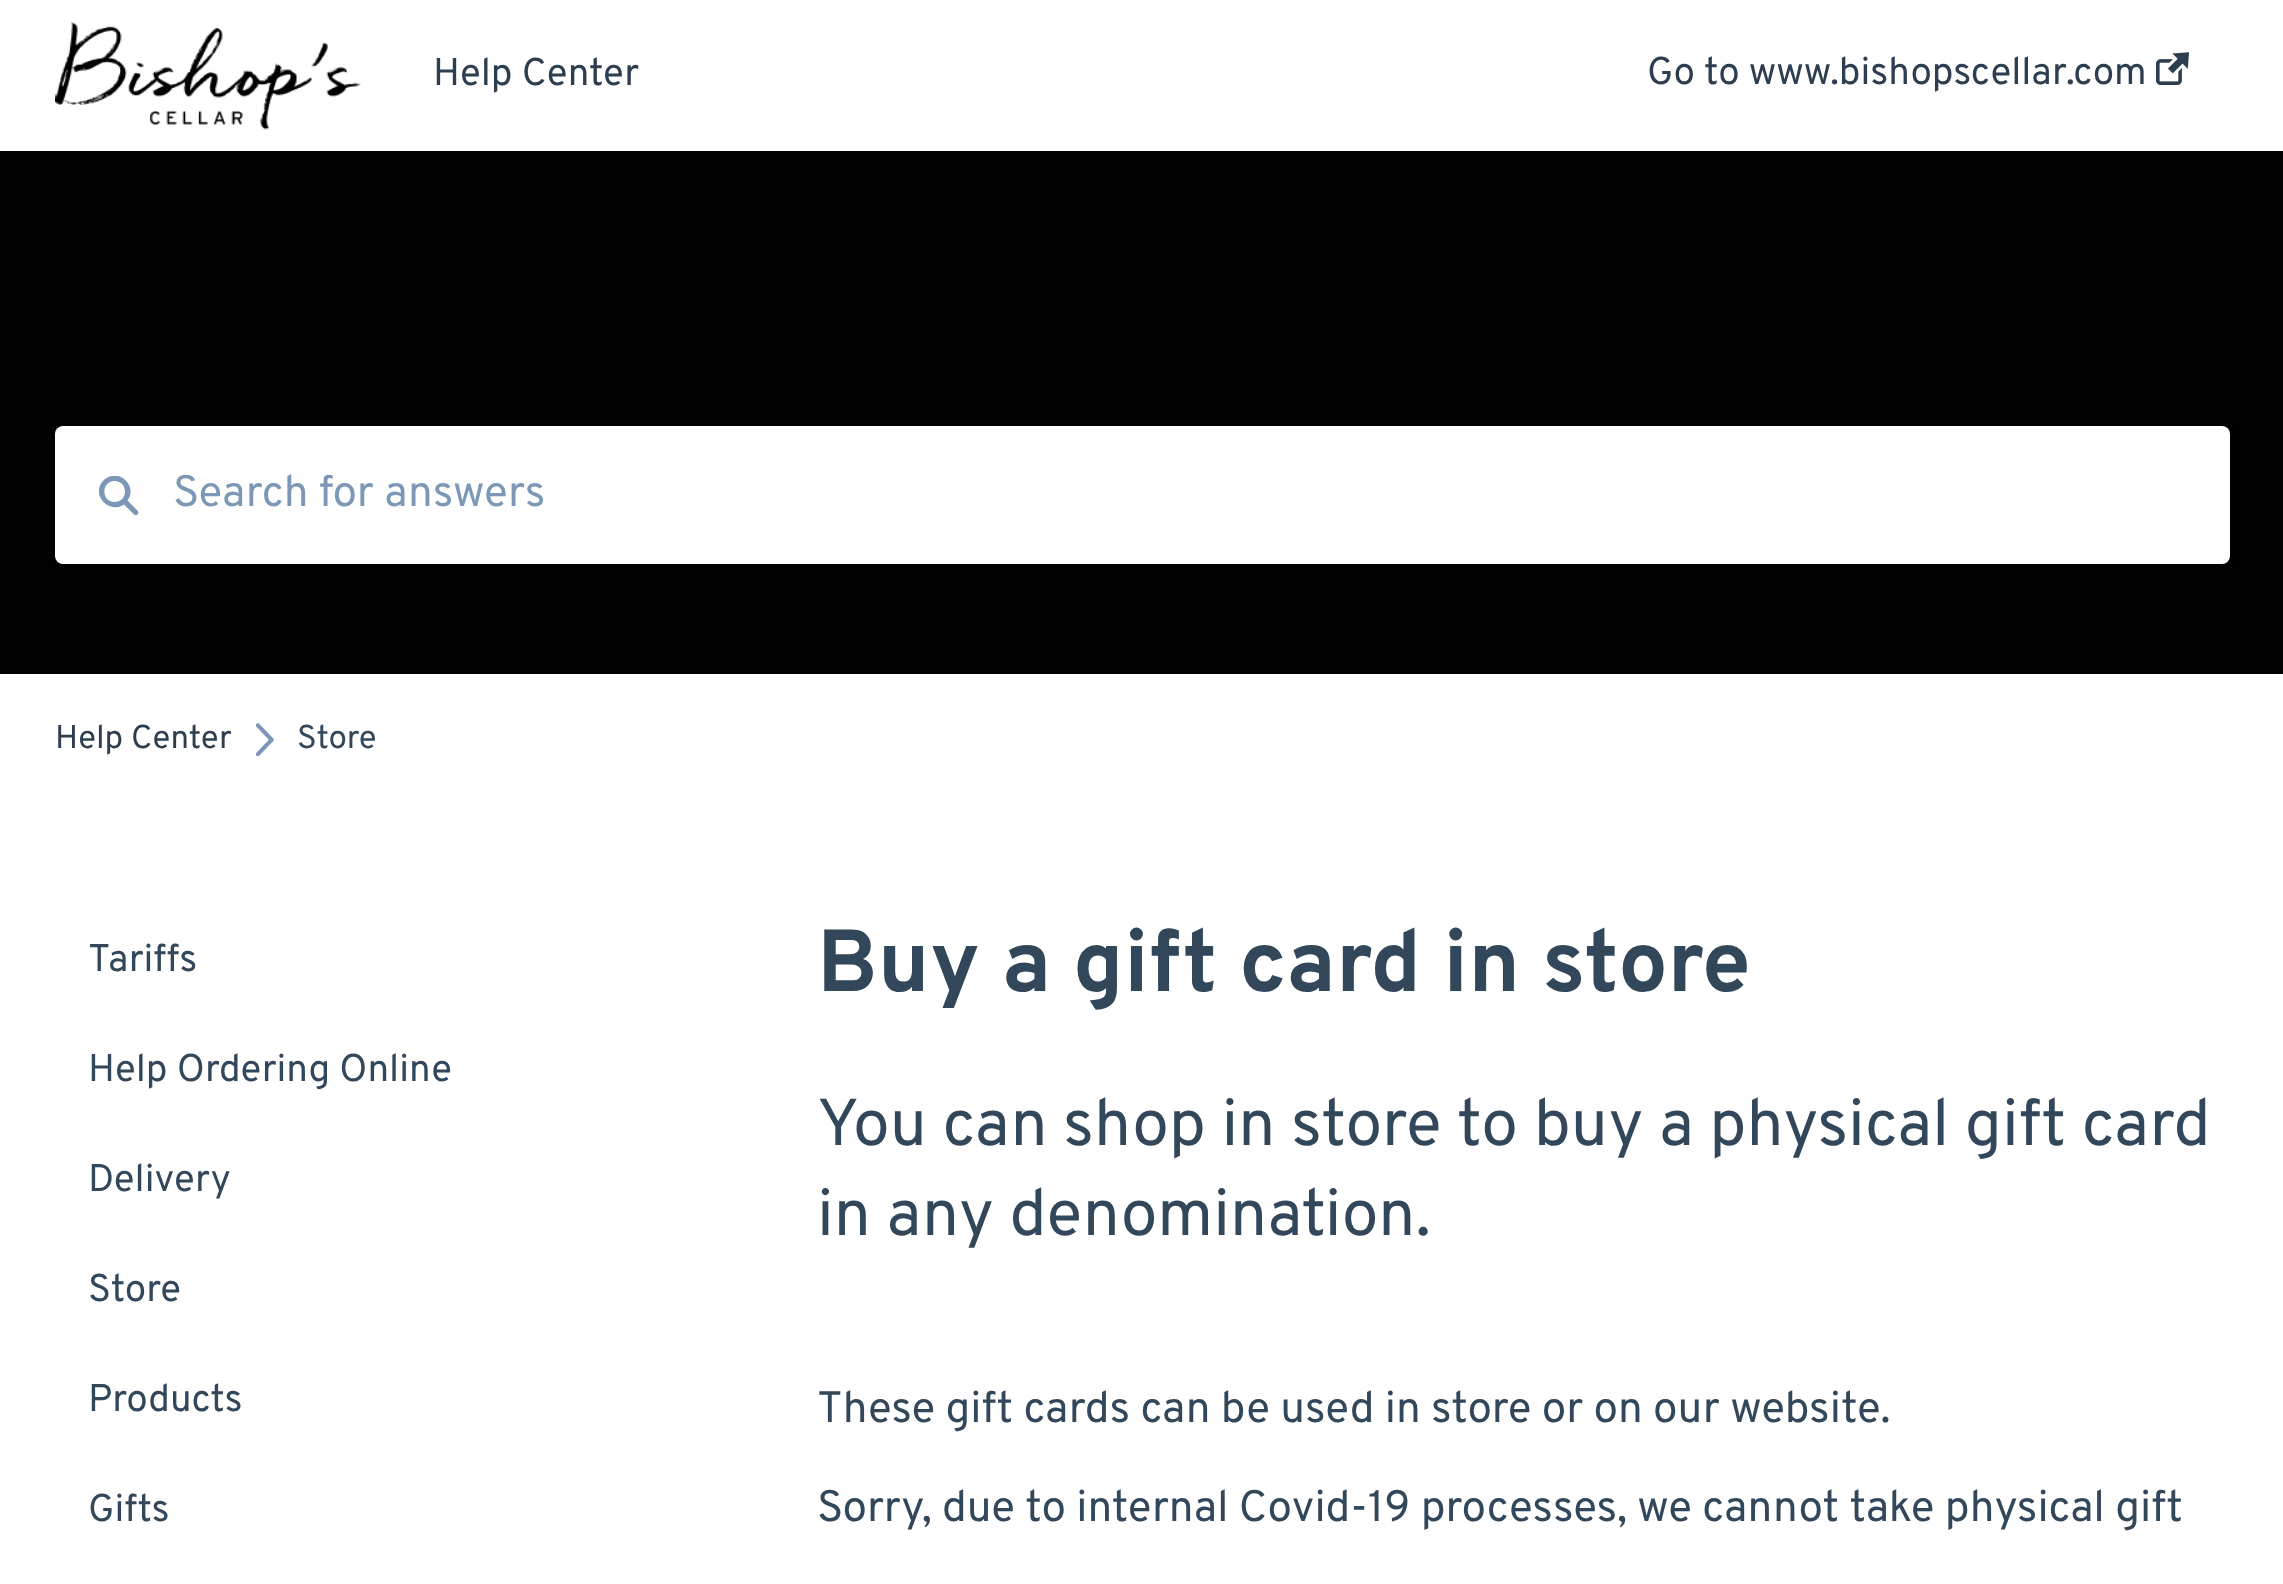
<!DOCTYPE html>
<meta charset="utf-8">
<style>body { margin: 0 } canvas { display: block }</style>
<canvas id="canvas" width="2283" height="1584"></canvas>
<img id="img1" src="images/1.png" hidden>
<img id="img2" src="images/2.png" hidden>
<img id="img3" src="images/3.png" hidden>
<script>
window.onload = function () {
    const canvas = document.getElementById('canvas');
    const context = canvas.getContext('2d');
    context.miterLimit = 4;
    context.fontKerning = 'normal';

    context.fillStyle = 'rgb(255, 255, 255)';
    context.fillRect(0, 0, 2283, 1584);
    context.drawImage(document.getElementById('img1'), 55, 22, 306, 108);
    context.drawImage(document.getElementById('img2'), 2156, 52, 33, 33);
    context.fillStyle = 'rgb(0, 1, 1)';
    context.fillRect(0, 151, 2283, 523);
    context.fillStyle = 'rgb(255, 255, 255)';
    context.beginPath();
    context.roundRect(55, 426, 2175, 138, 8);
    context.fill();
    context.save();
    context.beginPath();
    context.rect(99, 476, 41, 41);
    context.clip();
    context.fillStyle = 'rgb(124, 152, 182)';
    context.beginPath();
    context.moveTo(137.5, 510.5);
    context.lineTo(127.5, 500.5);
    context.bezierCurveTo(138.5, 485.5, 117.5, 466.5, 103.5, 480.5);
    context.bezierCurveTo(90, 494, 108.5, 515, 124, 504.5);
    context.lineTo(134, 514.5);
    context.bezierCurveTo(136.5, 516.5, 140, 513, 137.5, 510.5);
    context.closePath();
    context.moveTo(114.5, 502);
    context.bezierCurveTo(101, 502, 101, 481, 114.5, 481);
    context.bezierCurveTo(128.5, 481, 128.5, 502, 114.5, 502);
    context.closePath();
    context.fill('evenodd');
    context.restore();
    context.drawImage(document.getElementById('img3'), 256, 723, 18, 33);
    context.font = '38.5px Overpass';
    context.fillStyle = 'rgb(45, 62, 80)';
    context.fillText('Help Center', 433, 85);
    context.fillText('Go to www.bishopscellar.com', 1647, 84);
    context.font = '44px Overpass';
    context.fillStyle = 'rgb(124, 152, 182)';
    context.fillText('Search for answers', 173, 506);
    context.font = '33px Overpass';
    context.fillStyle = 'rgb(45, 62, 80)';
    context.fillText('Help Center', 55, 748);
    context.fillStyle = 'rgb(51, 71, 91)';
    context.fillText('Store', 297, 748);
    context.font = '38.5px Overpass';
    context.fillText('Tariffs', 88, 971);
    context.fillText('Help Ordering Online', 88, 1081);
    context.fillText('Delivery', 88, 1191);
    context.fillText('Store', 88, 1301);
    context.fillText('Products', 88, 1411);
    context.fillText('Gifts', 88, 1521);
    context.font = 'bold 88px Overpass';
    context.fillText('Buy a gift card in store', 817, 991);
    context.font = '66px Overpass';
    context.fillText('You can shop in store to buy a physical gift card', 817, 1145);
    context.fillText('in any denomination.', 817, 1235);
    context.font = '44px Overpass';
    context.fillText('These gift cards can be used in store or on our website.', 817, 1422);
    context.fillText('Sorry, due to internal Covid-19 processes, we cannot take physical gift', 817, 1521);
};
</script>
